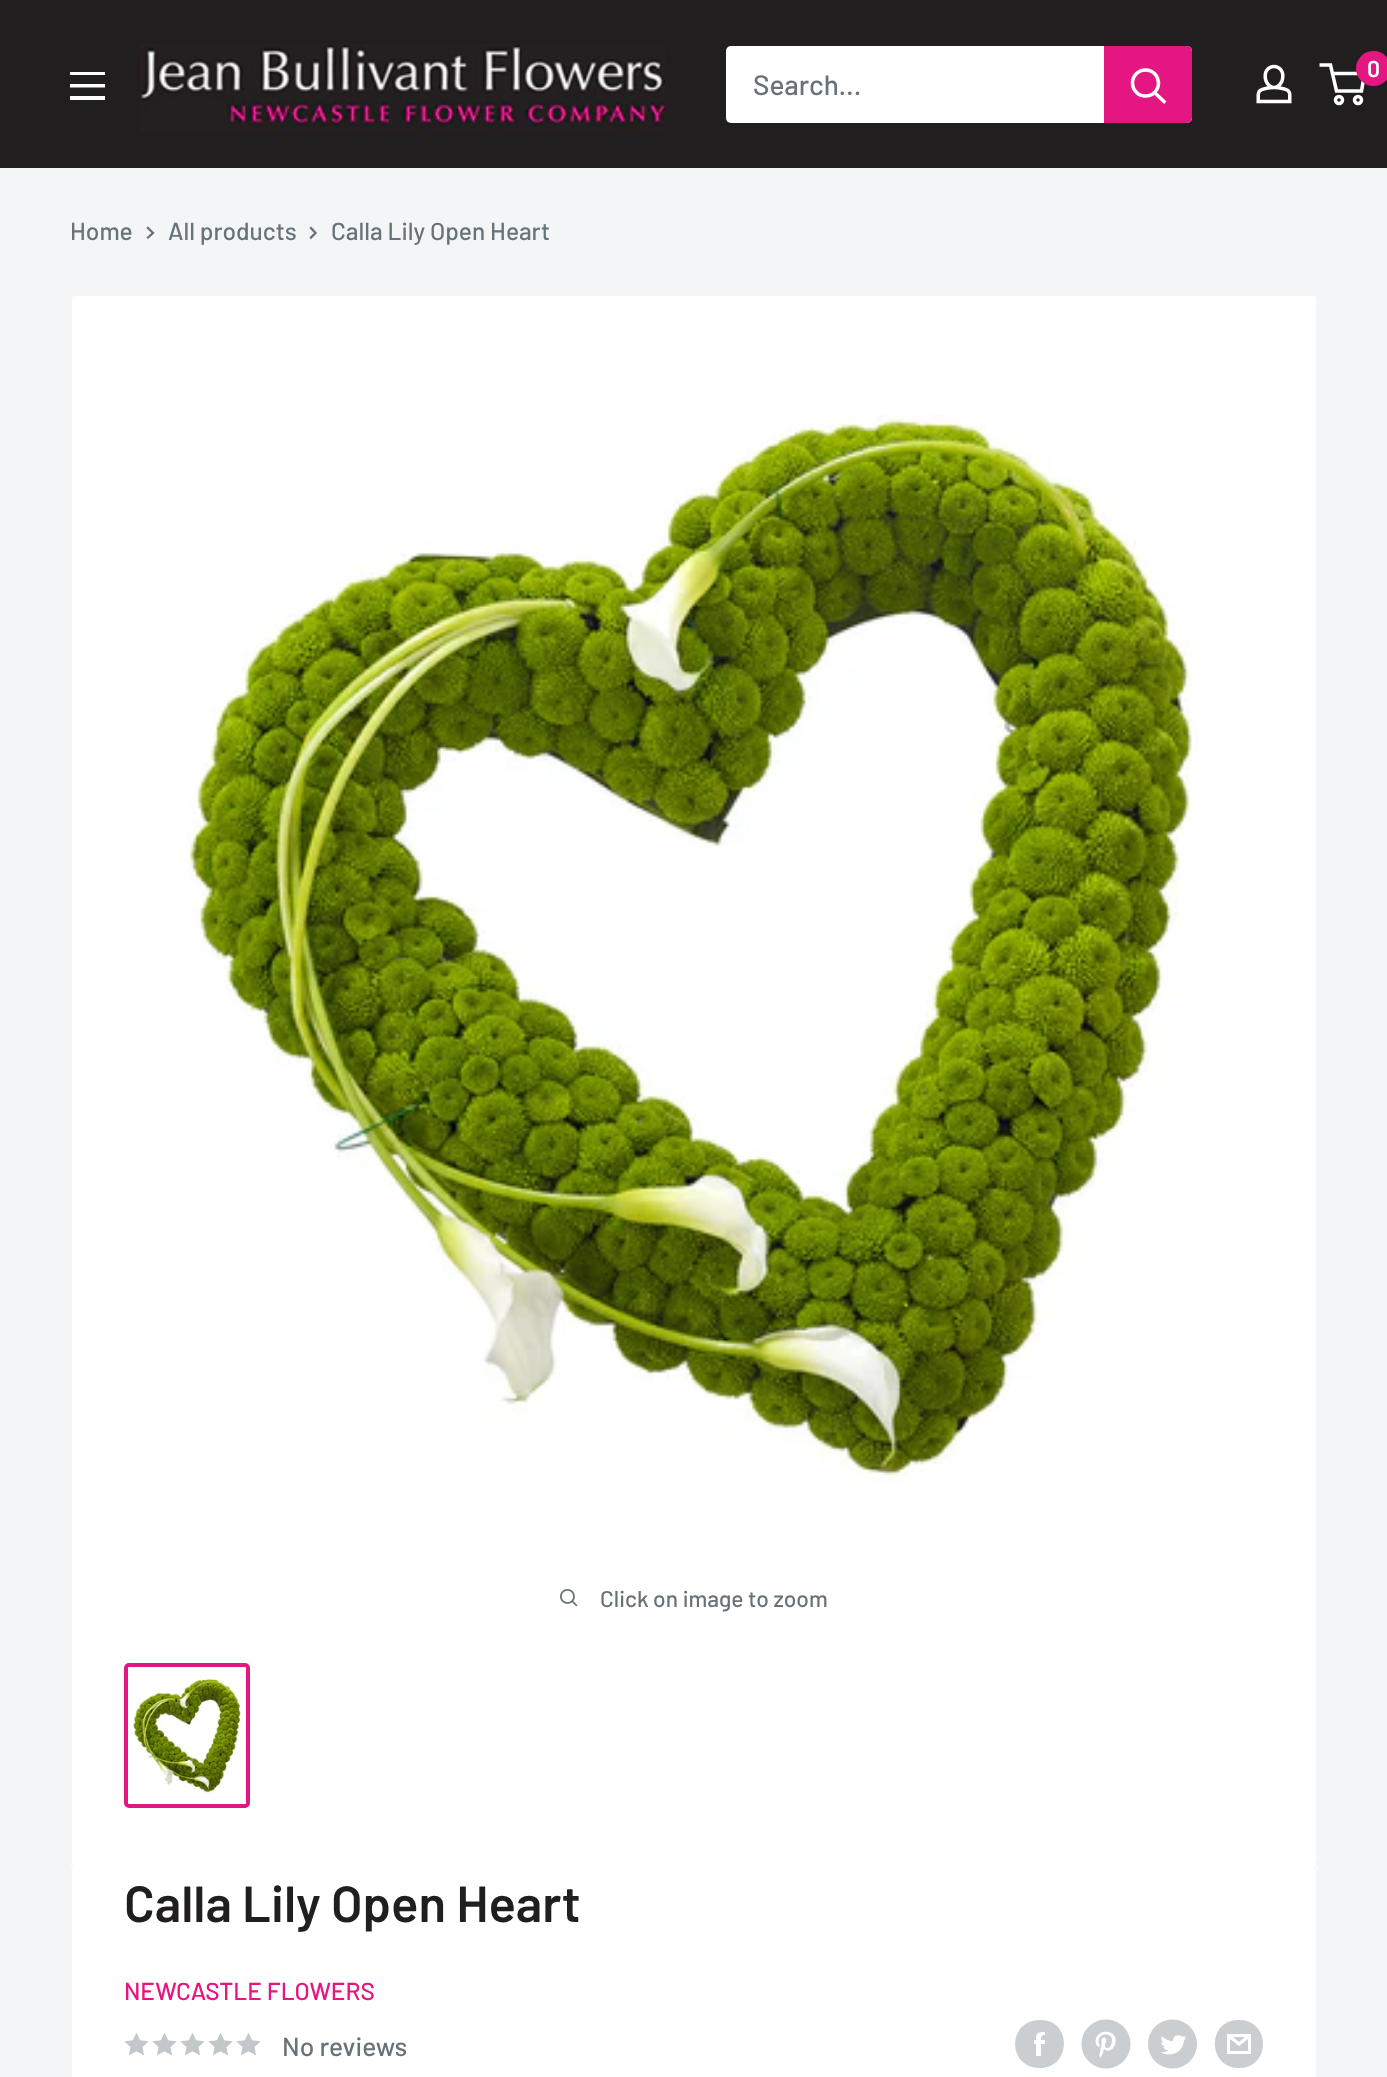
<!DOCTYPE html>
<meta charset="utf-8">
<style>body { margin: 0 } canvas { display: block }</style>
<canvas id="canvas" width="1387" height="2077"></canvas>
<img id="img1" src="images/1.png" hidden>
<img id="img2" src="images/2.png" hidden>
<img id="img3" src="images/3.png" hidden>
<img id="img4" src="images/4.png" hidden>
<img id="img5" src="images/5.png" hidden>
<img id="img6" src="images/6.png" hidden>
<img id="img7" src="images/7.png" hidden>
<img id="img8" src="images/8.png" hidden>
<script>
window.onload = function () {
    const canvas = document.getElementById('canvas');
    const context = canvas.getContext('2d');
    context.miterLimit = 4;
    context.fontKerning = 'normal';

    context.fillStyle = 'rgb(243, 245, 246)';
    context.fillRect(0, 0, 1387, 2077);
    context.fillStyle = 'rgb(33, 30, 31)';
    context.fillRect(0, 0, 1387, 168);
    context.drawImage(document.getElementById('img1'), 140, 44, 525, 89);
    context.drawImage(document.getElementById('img2'), 1256, 64, 36, 40);
    context.beginPath();
    context.arc(1339, 100, 3.5, 0, 2 * Math.PI);
    context.strokeStyle = 'rgb(255, 255, 255)';
    context.lineWidth = 3.5;
    context.stroke();
    context.beginPath();
    context.arc(1358, 100, 3.5, 0, 2 * Math.PI);
    context.stroke();
    context.beginPath();
    context.moveTo(1332.5, 73.5);
    context.lineTo(1364.5, 73.5);
    context.lineTo(1361.5, 91);
    context.lineTo(1336.5, 91);
    context.lineTo(1330.5, 65);
    context.lineTo(1319.5, 65);
    context.stroke();
    context.fillStyle = 'rgb(228, 23, 130)';
    context.beginPath();
    context.arc(1373.5, 68.5, 17.5, 0, 2 * Math.PI);
    context.fill();
    context.fillStyle = 'rgb(255, 255, 255)';
    context.beginPath();
    context.moveTo(70, 96);
    context.lineTo(105, 96);
    context.lineTo(105, 100);
    context.lineTo(70, 100);
    context.closePath();
    context.moveTo(70, 72);
    context.lineTo(105, 72);
    context.lineTo(105, 75);
    context.lineTo(70, 75);
    context.closePath();
    context.moveTo(70, 84);
    context.lineTo(105, 84);
    context.lineTo(105, 87.5);
    context.lineTo(70, 87.5);
    context.closePath();
    context.fill('evenodd');
    context.beginPath();
    context.roundRect(726, 46, 466, 77, 5);
    context.fill();
    context.fillStyle = 'rgb(228, 23, 130)';
    context.beginPath();
    context.roundRect(1104, 46, 88, 77, [0, 5, 5, 0]);
    context.fill();
    context.beginPath();
    context.moveTo(1164, 101.5);
    context.lineTo(1155, 93);
    context.lineCap = 'square';
    context.stroke();
    context.beginPath();
    context.arc(1145.5, 83, 13, 0, 2 * Math.PI);
    context.stroke();
    context.beginPath();
    context.moveTo(148, 228);
    context.lineTo(153, 233);
    context.lineTo(148, 237.5);
    context.strokeStyle = 'rgb(103, 114, 121)';
    context.lineWidth = 2.3;
    context.stroke();
    context.beginPath();
    context.moveTo(311, 228);
    context.lineTo(315.5, 233);
    context.lineTo(311, 237.5);
    context.stroke();
    context.fillStyle = 'rgb(255, 255, 255)';
    context.beginPath();
    context.roundRect(71, 295, 1246, 1570, 4);
    context.fill();
    context.strokeStyle = 'rgb(243, 245, 246)';
    context.lineWidth = 2;
    context.stroke();
    context.drawImage(document.getElementById('img3'), 187, 414, 1012, 1069);
    context.drawImage(document.getElementById('img4'), 560, 1589, 18, 18);
    context.beginPath();
    context.roundRect(126, 1665, 122, 141, 3);
    context.strokeStyle = 'rgb(228, 23, 130)';
    context.lineWidth = 4;
    context.stroke();
    context.drawImage(document.getElementById('img5'), 131, 1676, 111, 118);
    context.beginPath();
    context.moveTo(75, 1864);
    context.bezierCurveTo(71, 1864, 70, 1867, 70, 1871);
    context.bezierCurveTo(70, 1868, 72, 1866, 75, 1866);
    context.lineTo(1312, 1866);
    context.bezierCurveTo(1315, 1866, 1318, 1868, 1318, 1871);
    context.lineTo(1318, 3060);
    context.lineTo(1318, 1869);
    context.bezierCurveTo(1318, 1866, 1316, 1864, 1313, 1864);
    context.closePath();
    context.fill();
    context.beginPath();
    context.roundRect(70, 1866, 1248, 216, 5);
    context.fill();
    context.fillStyle = 'rgb(243, 245, 246)';
    context.beginPath();
    context.moveTo(75, 1866);
    context.lineTo(1312, 1866);
    context.bezierCurveTo(1315, 1866, 1318, 1868, 1318, 1871);
    context.lineTo(1318, 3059);
    context.bezierCurveTo(1318, 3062, 1315, 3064, 1312, 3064);
    context.lineTo(75, 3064);
    context.bezierCurveTo(72, 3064, 70, 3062, 70, 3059);
    context.lineTo(70, 1871);
    context.bezierCurveTo(70, 1868, 72, 1866, 75, 1866);
    context.closePath();
    context.moveTo(75, 1866);
    context.lineTo(1312, 1866);
    context.bezierCurveTo(1314, 1866, 1316, 1868, 1316, 1871);
    context.lineTo(1316, 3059);
    context.bezierCurveTo(1316, 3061, 1314, 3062, 1312, 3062);
    context.lineTo(75, 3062);
    context.bezierCurveTo(73, 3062, 72, 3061, 72, 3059);
    context.lineTo(72, 1871);
    context.bezierCurveTo(72, 1868, 73, 1866, 75, 1866);
    context.closePath();
    context.fill('evenodd');
    context.drawImage(document.getElementById('img6'), 124, 2032, 25, 24);
    context.drawImage(document.getElementById('img6'), 152, 2032, 25, 24);
    context.drawImage(document.getElementById('img6'), 180, 2032, 25, 24);
    context.drawImage(document.getElementById('img6'), 208, 2032, 25, 24);
    context.drawImage(document.getElementById('img6'), 236, 2032, 25, 24);
    context.fillStyle = 'rgb(202, 206, 208)';
    context.beginPath();
    context.moveTo(1040, 2068);
    context.bezierCurveTo(1007, 2068, 1007, 2020, 1040, 2020);
    context.bezierCurveTo(1072, 2019, 1072, 2068, 1040, 2068);
    context.closePath();
    context.moveTo(1045, 2040);
    context.lineTo(1041, 2040);
    context.bezierCurveTo(1041, 2037, 1041, 2035, 1045, 2035);
    context.lineTo(1045, 2032);
    context.bezierCurveTo(1037, 2032, 1036, 2033, 1036, 2040);
    context.lineTo(1034, 2040);
    context.lineTo(1034, 2044);
    context.lineTo(1036, 2044);
    context.lineTo(1036, 2056);
    context.lineTo(1041, 2056);
    context.lineTo(1041, 2044);
    context.lineTo(1045, 2044);
    context.closePath();
    context.fill('evenodd');
    context.drawImage(document.getElementById('img7'), 1081, 2019, 50, 50);
    context.drawImage(document.getElementById('img8'), 1148, 2019, 49, 50);
    context.beginPath();
    context.moveTo(1239, 2068);
    context.bezierCurveTo(1207, 2068, 1207, 2019, 1239, 2020);
    context.bezierCurveTo(1271, 2020, 1271, 2068, 1239, 2068);
    context.closePath();
    context.moveTo(1233, 2037);
    context.lineTo(1245, 2037);
    context.lineTo(1239, 2042);
    context.closePath();
    context.moveTo(1248, 2039);
    context.lineTo(1248, 2051);
    context.lineTo(1230, 2051);
    context.lineTo(1230, 2039);
    context.lineTo(1239, 2046);
    context.closePath();
    context.moveTo(1251, 2034);
    context.lineTo(1227, 2034);
    context.lineTo(1227, 2054);
    context.lineTo(1251, 2054);
    context.closePath();
    context.fill();
    context.font = '600 23px Barlow';
    context.fillStyle = 'rgb(255, 255, 255)';
    context.fillText('0', 1367, 77);
    context.font = '500 28px Barlow';
    context.fillStyle = 'rgb(103, 114, 121)';
    context.fillText('Search...', 753, 95);
    context.font = '500 24.5px Barlow';
    context.fillText('Home', 70, 240);
    context.fillText('All products', 168, 240);
    context.fillText('Calla Lily Open Heart', 331, 240);
    context.font = '500 22.75px Barlow';
    context.fillText('Click on image to zoom', 600, 1607);
    context.font = '600 50.75px Barlow';
    context.fillStyle = 'rgb(33, 30, 31)';
    context.fillText('Calla Lily Open Heart', 124, 1922);
    context.font = '500 24.5px Barlow';
    context.fillStyle = 'rgb(228, 23, 130)';
    context.fillText('NEWCASTLE FLOWERS', 124, 2000);
    context.font = '500 26.25px Barlow';
    context.fillStyle = 'rgb(103, 114, 121)';
    context.fillText('No reviews', 282, 2056);
};
</script>
